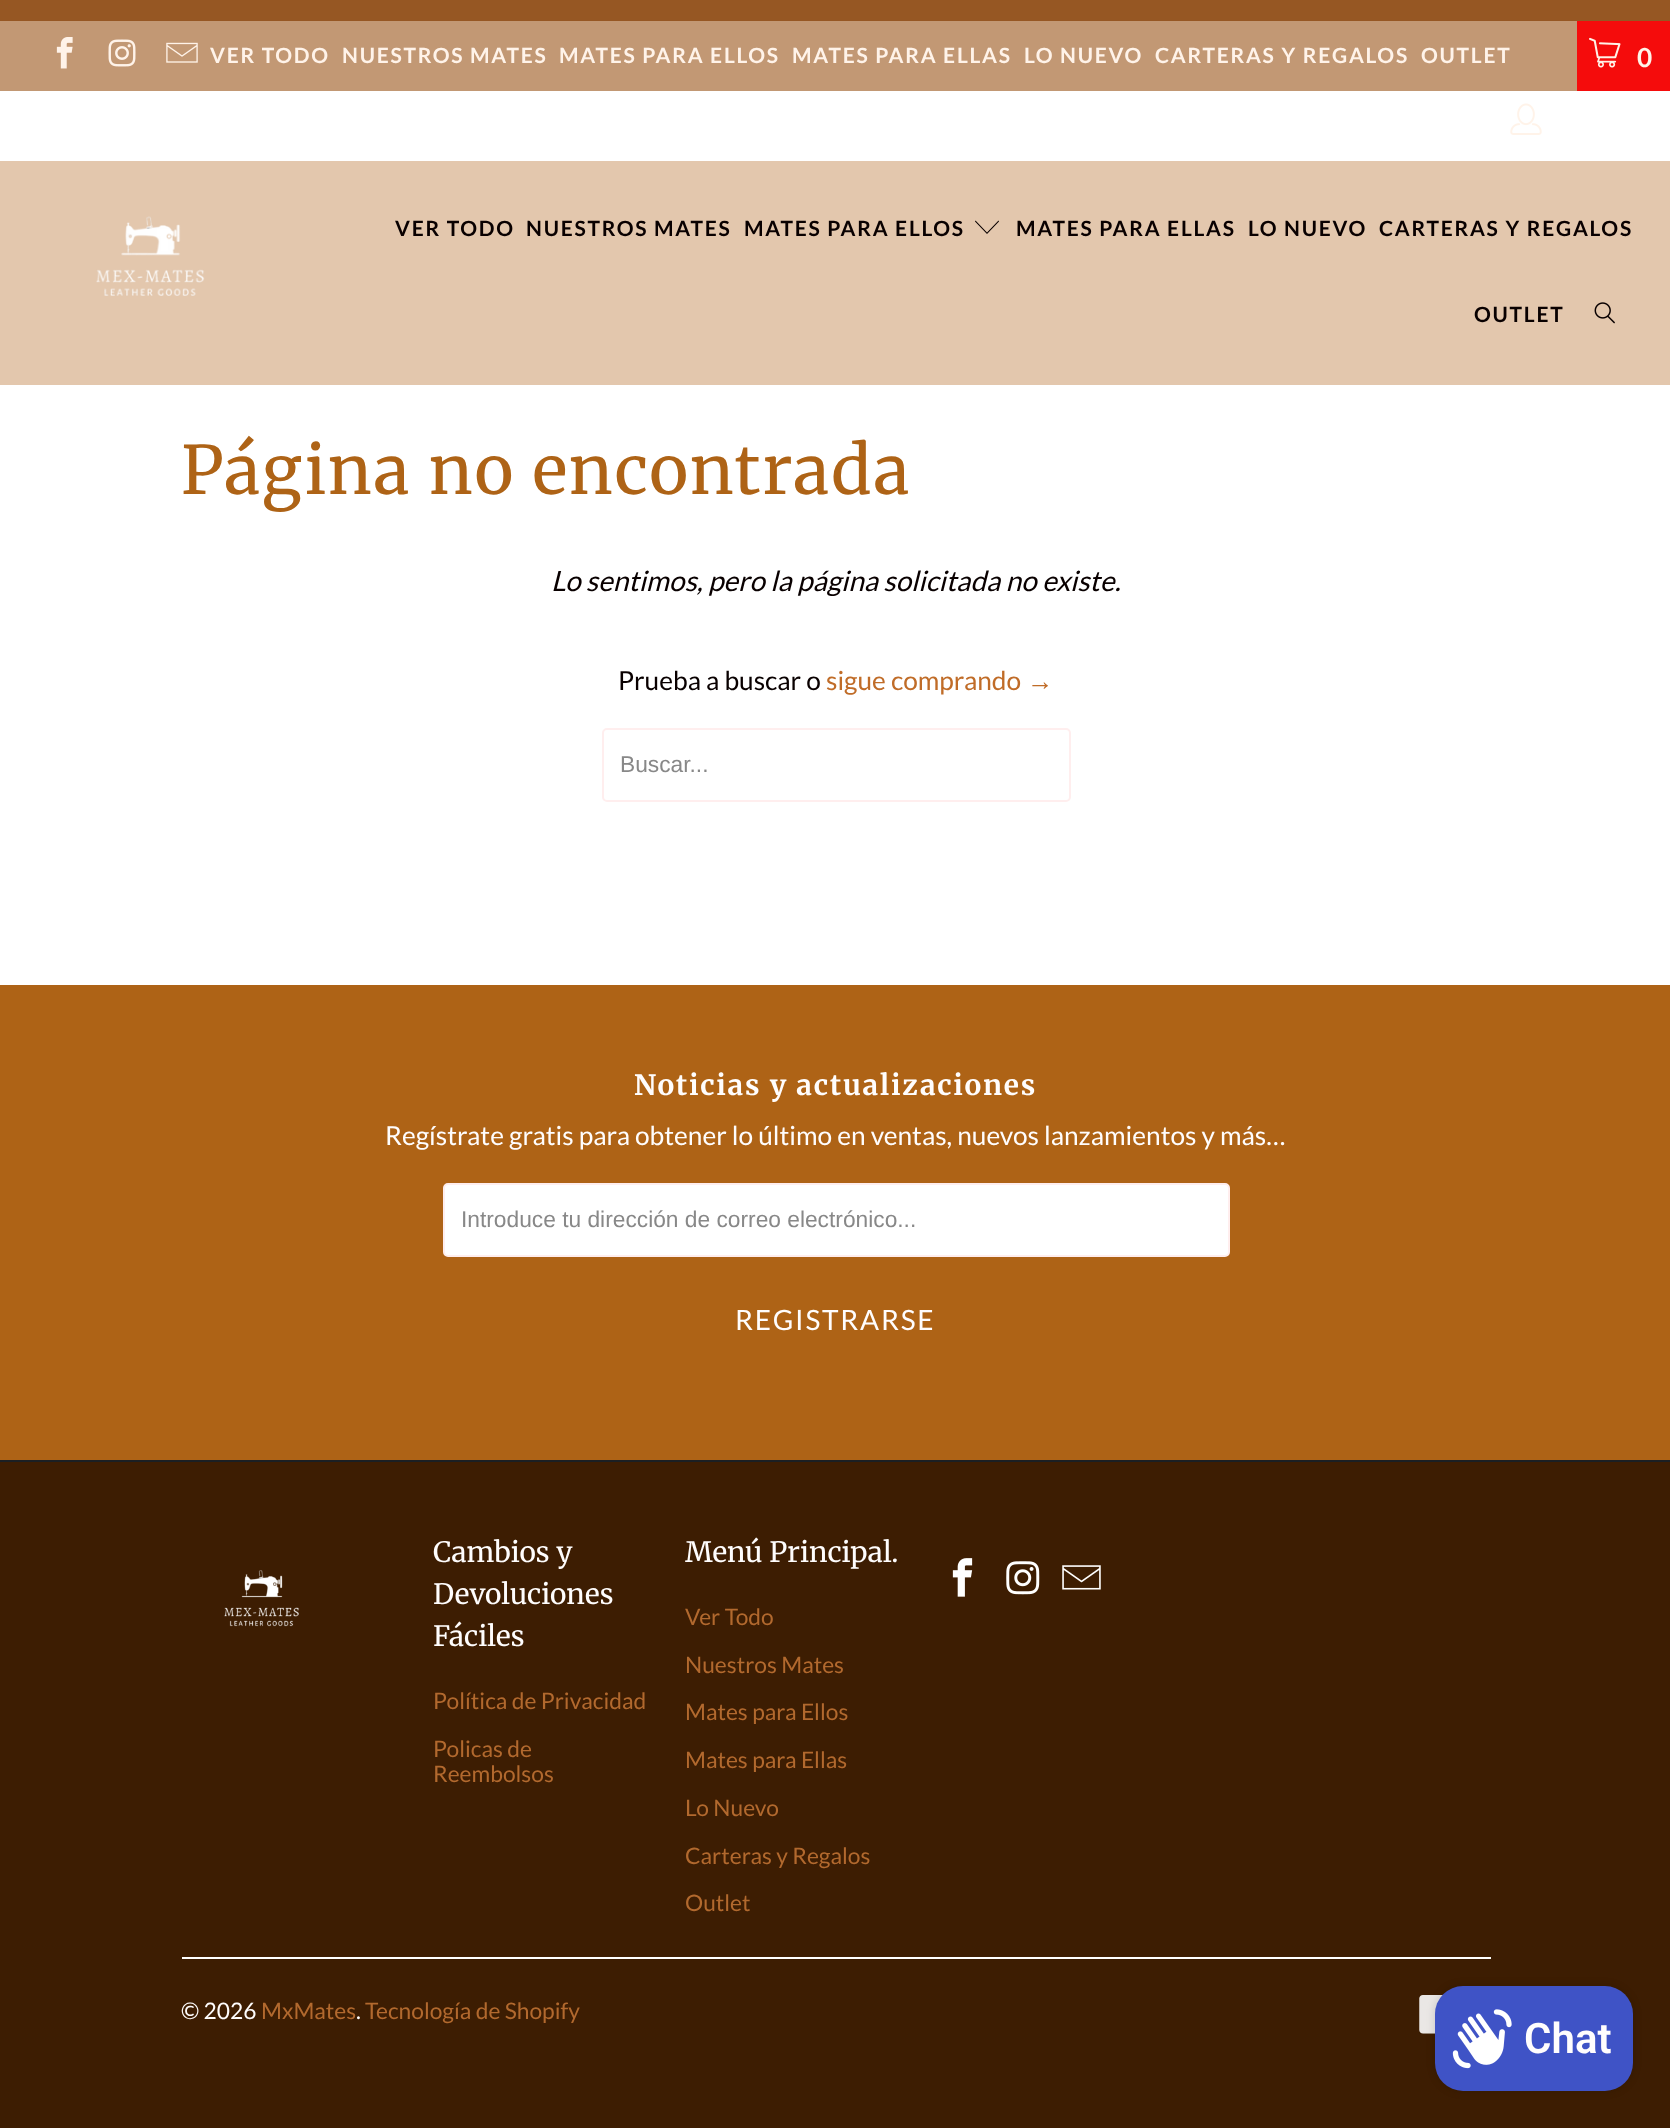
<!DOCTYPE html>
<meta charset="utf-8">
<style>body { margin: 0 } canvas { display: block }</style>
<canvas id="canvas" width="1670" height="2128"></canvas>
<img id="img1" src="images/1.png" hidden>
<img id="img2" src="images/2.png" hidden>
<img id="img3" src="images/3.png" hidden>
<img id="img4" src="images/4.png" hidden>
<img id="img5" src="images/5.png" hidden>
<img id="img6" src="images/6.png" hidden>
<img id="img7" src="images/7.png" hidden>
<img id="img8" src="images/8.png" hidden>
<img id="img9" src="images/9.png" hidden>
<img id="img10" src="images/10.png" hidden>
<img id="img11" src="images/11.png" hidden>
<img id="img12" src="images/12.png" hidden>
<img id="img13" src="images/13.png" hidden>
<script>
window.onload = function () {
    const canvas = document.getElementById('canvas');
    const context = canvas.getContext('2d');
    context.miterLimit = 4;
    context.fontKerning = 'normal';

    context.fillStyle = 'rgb(255, 255, 255)';
    context.fillRect(0, 0, 1670, 2128);
    context.fillStyle = 'rgb(150, 87, 35)';
    context.fillRect(0, 0, 1670, 21);
    context.fillStyle = 'rgb(194, 152, 116)';
    context.fillRect(0, 21, 1577, 70);
    context.drawImage(document.getElementById('img1'), 56, 37, 17, 32);
    context.drawImage(document.getElementById('img2'), 108, 39, 28, 28);
    context.drawImage(document.getElementById('img3'), 166, 42, 32, 21);
    context.fillStyle = 'rgb(245, 12, 12)';
    context.fillRect(1577, 21, 93, 70);
    context.drawImage(document.getElementById('img4'), 1589, 37, 32, 31);
    context.drawImage(document.getElementById('img5'), 1510, 103, 32, 32);
    context.fillStyle = 'rgb(227, 199, 173)';
    context.fillRect(0, 161, 1670, 224);
    context.drawImage(document.getElementById('img6'), 96, 216, 109, 80);
    context.fillStyle = 'rgb(9, 0, 0)';
    context.beginPath();
    context.moveTo(987, 234);
    context.lineTo(975, 221.5);
    context.lineTo(975.5, 220.5);
    context.lineTo(987, 232.5);
    context.lineTo(998.5, 220.5);
    context.lineTo(999, 221.5);
    context.closePath();
    context.fill();
    context.drawImage(document.getElementById('img7'), 1594, 302, 21, 22);
    context.beginPath();
    context.roundRect(603, 729, 467, 72, 4);
    context.strokeStyle = 'rgb(255, 238, 238)';
    context.lineWidth = 2;
    context.stroke();
    context.fillStyle = 'rgb(174, 99, 22)';
    context.fillRect(0, 985, 1670, 475);
    context.fillStyle = 'rgb(255, 255, 255)';
    context.beginPath();
    context.roundRect(444, 1184, 785, 72, 4);
    context.fill();
    context.stroke();
    context.fillStyle = 'rgb(61, 29, 2)';
    context.fillRect(0, 1462, 1670, 666);
    context.fillStyle = 'rgb(27, 31, 35)';
    context.fillRect(0, 1460, 1670, 2);
    context.drawImage(document.getElementById('img8'), 952, 1558, 21, 39);
    context.drawImage(document.getElementById('img9'), 1006, 1561, 34, 34);
    context.drawImage(document.getElementById('img10'), 1062, 1565, 39, 25);
    context.fillStyle = 'rgb(255, 255, 255)';
    context.fillRect(182, 1957, 1309, 2);
    context.drawImage(document.getElementById('img11'), 1419, 1995, 24, 39);
    context.drawImage(document.getElementById('img12'), 224, 1570, 75, 57);
    context.fillStyle = 'rgba(0, 0, 0, 0.15)';
    context.filter = 'blur(4.5px)';
    context.beginPath();
    context.roundRect(1435, 1986, 198, 105, 28);
    context.fill();
    context.filter = 'none';
    context.fillStyle = 'rgb(63, 83, 198)';
    context.beginPath();
    context.roundRect(1435, 1986, 198, 105, 28);
    context.fill();
    context.drawImage(document.getElementById('img13'), 1452, 2009, 60, 60);
    context.letterSpacing = '1.75px';
    context.font = 'bold 21px Lato';
    context.fillStyle = 'rgb(255, 243, 233)';
    context.fillText('VER TODO', 210, 63);
    context.fillText('NUESTROS MATES', 342, 63);
    context.fillText('MATES PARA ELLOS', 559, 63);
    context.fillText('MATES PARA ELLAS', 792, 63);
    context.fillText('LO NUEVO', 1024, 63);
    context.fillText('CARTERAS Y REGALOS', 1155, 63);
    context.fillText('OUTLET', 1421, 63);
    context.font = 'bold 26.25px Lato';
    context.fillText('0', 1637, 67);
    context.font = 'bold 21px Lato';
    context.fillStyle = 'rgb(9, 0, 0)';
    context.fillText('VER TODO', 395, 236);
    context.fillText('NUESTROS MATES', 526, 236);
    context.fillText('MATES PARA ELLOS', 744, 236);
    context.fillText('MATES PARA ELLAS', 1016, 236);
    context.fillText('LO NUEVO', 1248, 236);
    context.fillText('CARTERAS Y REGALOS', 1379, 236);
    context.fillText('OUTLET', 1474, 322);
    context.font = '66.5px Merriweather';
    context.fillStyle = 'rgb(174, 99, 22)';
    context.fillText('Página no encontrada', 181, 494);
    context.letterSpacing = '0px';
    context.font = 'italic 28px Lato';
    context.fillStyle = 'rgb(9, 0, 0)';
    context.fillText('Lo sentimos, pero la página solicitada no existe.', 551, 591);
    context.font = '26.25px Lato';
    context.fillText('Prueba a buscar o', 618, 690);
    context.fillStyle = 'rgb(192, 108, 40)';
    context.fillText('sigue comprando', 826, 690);
    context.font = '26.25px Liberation Serif';
    context.fillText('→', 1027, 690);
    context.font = '22.75px Liberation Sans';
    context.fillStyle = 'rgb(136, 136, 136)';
    context.fillText('Buscar...', 620, 772);
    context.letterSpacing = '1.75px';
    context.font = 'bold 28px Merriweather';
    context.fillStyle = 'rgb(255, 253, 253)';
    context.fillText('Noticias y actualizaciones', 634, 1095);
    context.letterSpacing = '0px';
    context.font = '26.25px Lato';
    context.fillText('Regístrate gratis para obtener lo último en ventas, nuevos lanzamientos y más…', 385, 1145);
    context.font = '22.75px Liberation Sans';
    context.fillStyle = 'rgb(136, 136, 136)';
    context.fillText('Introduce tu dirección de correo electrónico...', 461, 1227);
    context.letterSpacing = '1.75px';
    context.font = '28px Lato';
    context.fillStyle = 'rgb(255, 253, 253)';
    context.fillText('REGISTRARSE', 735, 1330);
    context.letterSpacing = '0px';
    context.font = '28px Merriweather';
    context.fillText('Cambios y', 433, 1562);
    context.fillText('Devoluciones', 433, 1604);
    context.fillText('Fáciles', 433, 1646);
    context.font = '22.75px Lato';
    context.fillStyle = 'rgb(178, 105, 46)';
    context.fillText('Política de Privacidad', 433, 1709);
    context.fillText('Policas de', 433, 1757);
    context.fillText('Reembolsos', 433, 1782);
    context.font = '28px Merriweather';
    context.fillStyle = 'rgb(255, 253, 253)';
    context.fillText('Menú Principal.', 685, 1562);
    context.font = '22.75px Lato';
    context.fillStyle = 'rgb(178, 105, 46)';
    context.fillText('Ver Todo', 685, 1625);
    context.fillText('Nuestros Mates', 685, 1673);
    context.fillText('Mates para Ellos', 685, 1720);
    context.fillText('Mates para Ellas', 685, 1768);
    context.fillText('Lo Nuevo', 685, 1816);
    context.fillText('Carteras y Regalos', 685, 1864);
    context.fillText('Outlet', 685, 1911);
    context.fillStyle = 'rgb(255, 253, 253)';
    context.fillText('© 2026', 181, 2019);
    context.fillStyle = 'rgb(178, 105, 46)';
    context.fillText('MxMates', 261, 2019);
    context.fillStyle = 'rgb(255, 253, 253)';
    context.fillText('.', 356, 2019);
    context.fillStyle = 'rgb(178, 105, 46)';
    context.fillText('Tecnología de Shopify', 365, 2019);
    context.font = '600 42px Roboto';
    context.fillStyle = 'rgb(255, 253, 253)';
    context.fillText('Chat', 1524, 2053);
};
</script>
